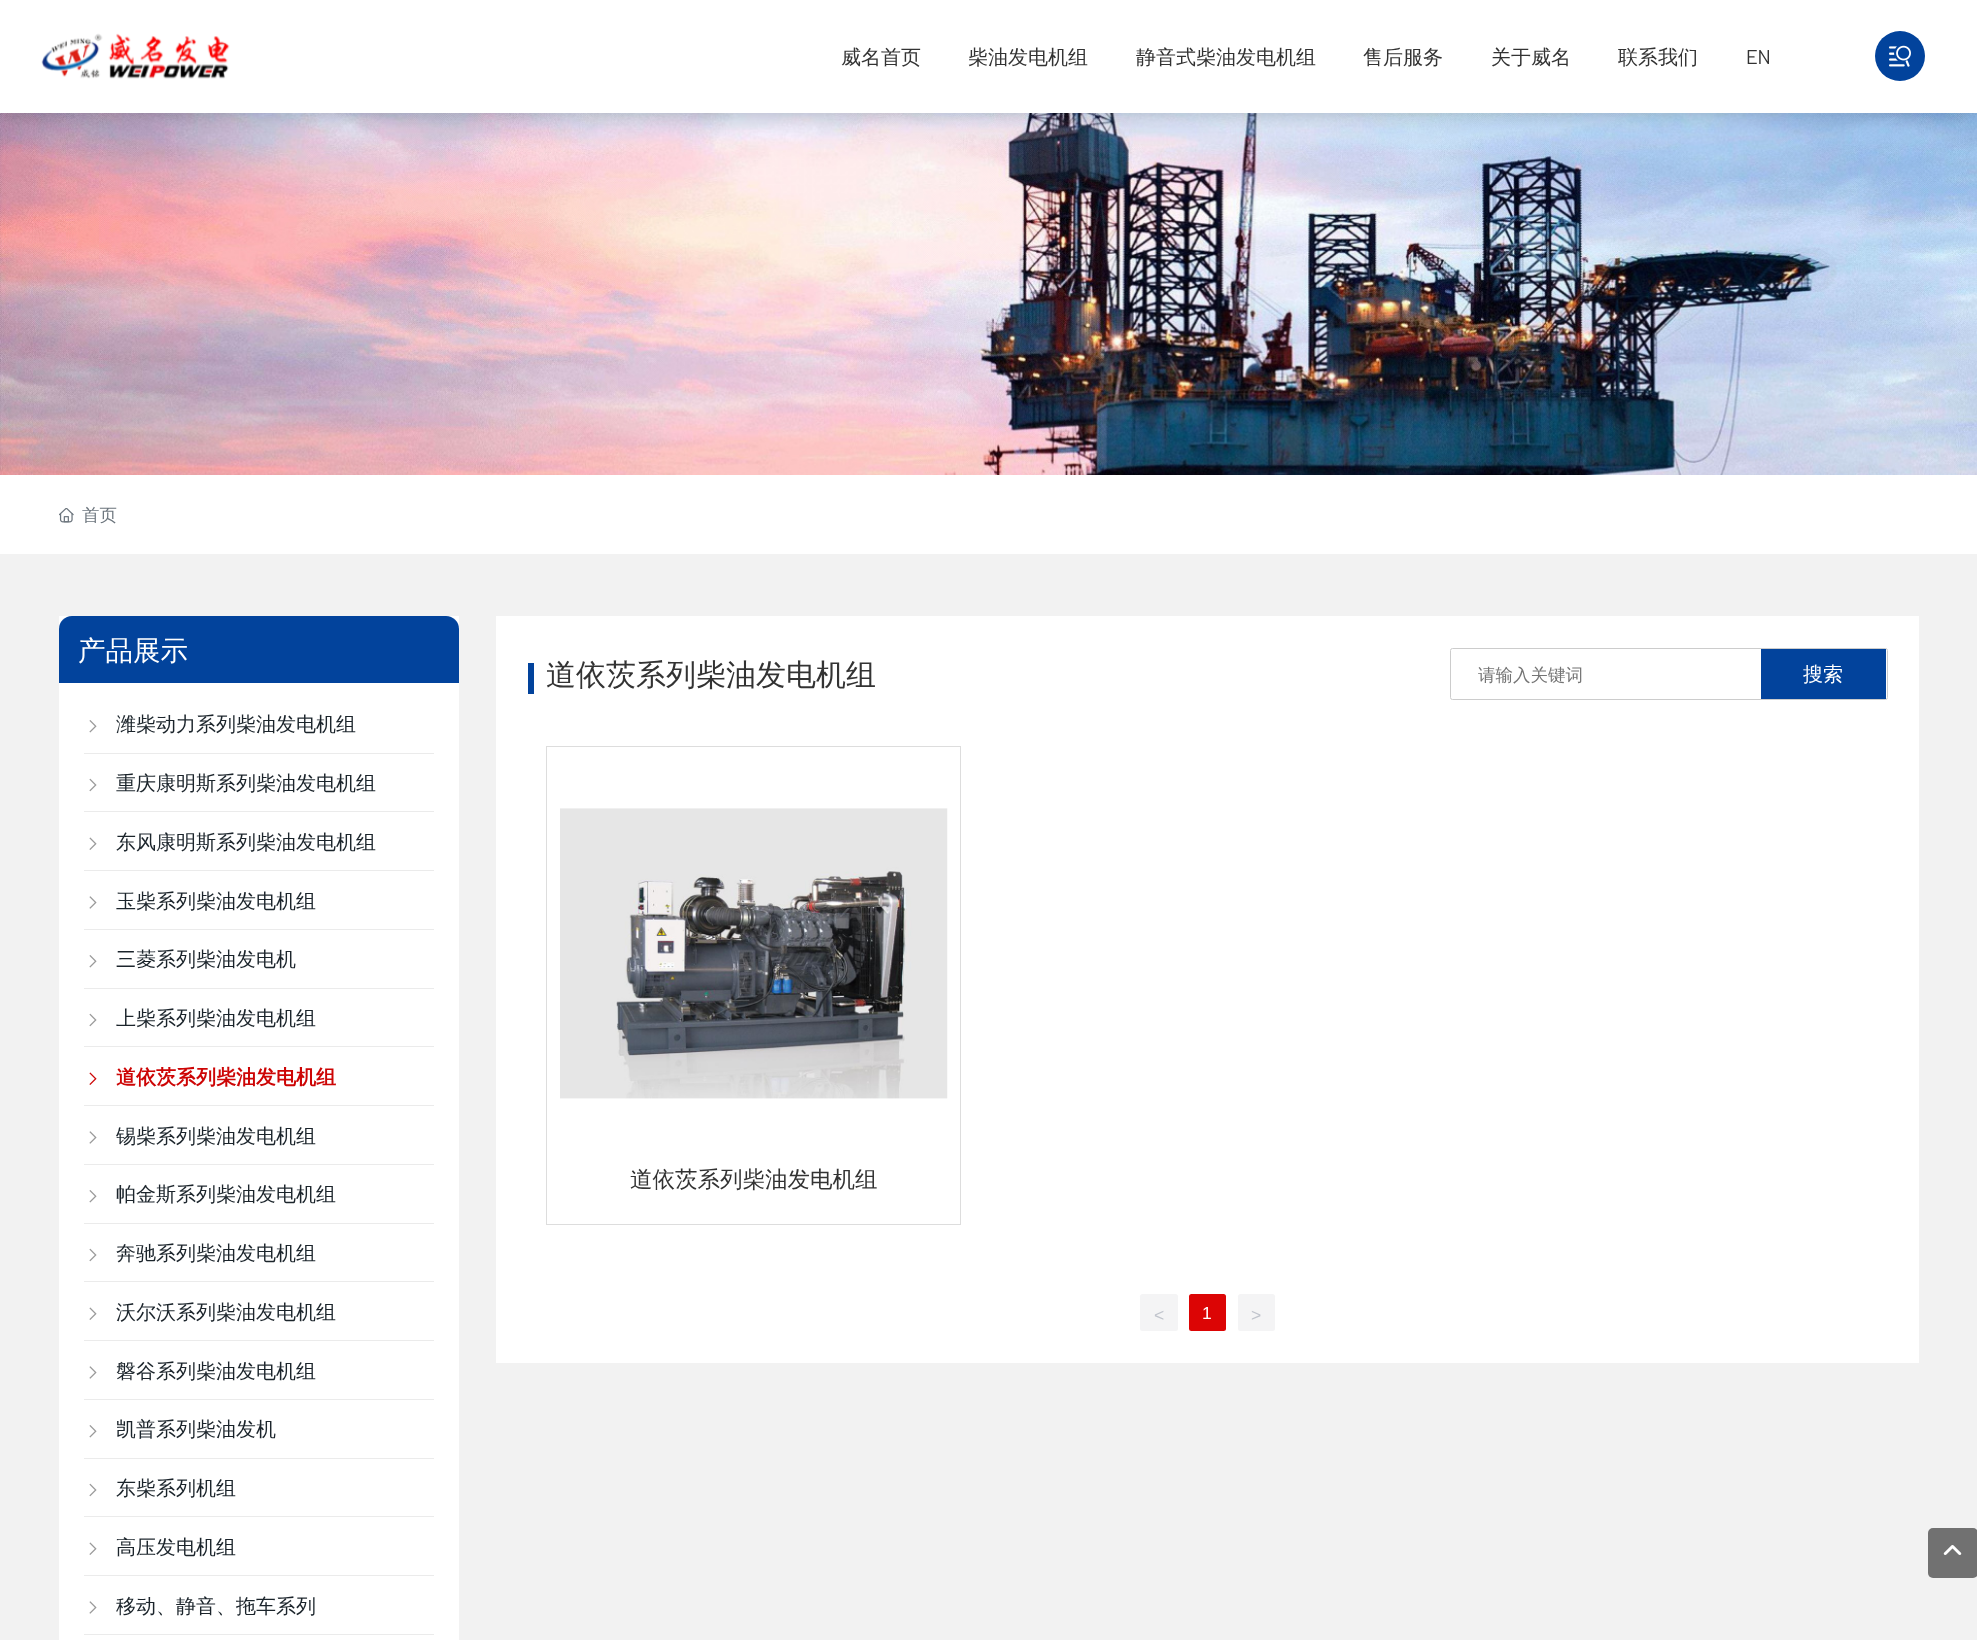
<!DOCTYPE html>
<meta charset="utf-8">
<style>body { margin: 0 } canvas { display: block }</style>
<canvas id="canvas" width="1977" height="1640"></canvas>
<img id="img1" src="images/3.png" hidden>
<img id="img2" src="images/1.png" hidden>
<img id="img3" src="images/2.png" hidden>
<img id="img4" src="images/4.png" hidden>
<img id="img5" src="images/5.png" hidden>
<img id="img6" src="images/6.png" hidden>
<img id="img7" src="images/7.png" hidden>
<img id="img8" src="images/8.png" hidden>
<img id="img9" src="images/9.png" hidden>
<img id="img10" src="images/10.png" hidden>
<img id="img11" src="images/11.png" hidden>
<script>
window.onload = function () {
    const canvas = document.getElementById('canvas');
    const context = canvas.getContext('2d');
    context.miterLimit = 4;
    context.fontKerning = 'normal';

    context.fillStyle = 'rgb(242, 242, 242)';
    context.fillRect(0, 0, 1977, 1640);
    context.drawImage(document.getElementById('img1'), 0, 113, 1977, 362);
    context.fillStyle = 'rgba(0, 0, 0, 0.2)';
    context.filter = 'blur(9.5px)';
    context.beginPath();
    context.rect(0, 0, 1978, 113);
    context.fill();
    context.filter = 'none';
    context.fillStyle = 'rgb(255, 255, 255)';
    context.fillRect(0, 0, 1977, 113);
    context.drawImage(document.getElementById('img2'), 41, 33, 189, 46);
    context.fillStyle = 'rgb(2, 67, 156)';
    context.beginPath();
    context.arc(1900, 56, 25, 0, 2 * Math.PI);
    context.fill();
    context.drawImage(document.getElementById('img3'), 1889, 45, 22, 22);
    context.fillStyle = 'rgb(255, 255, 255)';
    context.fillRect(0, 475, 1977, 79);
    context.drawImage(document.getElementById('img4'), 59, 508, 15, 15);
    context.fillRect(59, 616, 400, 1024);
    context.fillStyle = 'rgb(2, 67, 156)';
    context.beginPath();
    context.roundRect(59, 616, 400, 67, [13, 13, 0, 0]);
    context.fill();
    context.fillStyle = 'rgb(235, 235, 235)';
    context.fillRect(84, 753, 350, 1);
    context.drawImage(document.getElementById('img5'), 89, 720, 8, 13);
    context.fillRect(84, 811, 350, 1);
    context.drawImage(document.getElementById('img6'), 89, 778, 8, 14);
    context.fillRect(84, 870, 350, 1);
    context.drawImage(document.getElementById('img7'), 89, 837, 8, 13);
    context.fillRect(84, 929, 350, 1);
    context.drawImage(document.getElementById('img8'), 89, 896, 8, 13);
    context.fillRect(84, 988, 350, 1);
    context.drawImage(document.getElementById('img5'), 89, 955, 8, 13);
    context.fillRect(84, 1046, 350, 1);
    context.drawImage(document.getElementById('img6'), 89, 1013, 8, 14);
    context.fillRect(84, 1105, 350, 1);
    context.drawImage(document.getElementById('img9'), 89, 1072, 8, 13);
    context.fillRect(84, 1164, 350, 1);
    context.drawImage(document.getElementById('img8'), 89, 1131, 8, 13);
    context.fillRect(84, 1223, 350, 1);
    context.drawImage(document.getElementById('img5'), 89, 1190, 8, 13);
    context.fillRect(84, 1281, 350, 1);
    context.drawImage(document.getElementById('img6'), 89, 1248, 8, 14);
    context.fillRect(84, 1340, 350, 1);
    context.drawImage(document.getElementById('img7'), 89, 1307, 8, 13);
    context.fillRect(84, 1399, 350, 1);
    context.drawImage(document.getElementById('img8'), 89, 1366, 8, 13);
    context.fillRect(84, 1458, 350, 1);
    context.drawImage(document.getElementById('img5'), 89, 1425, 8, 13);
    context.fillRect(84, 1516, 350, 1);
    context.drawImage(document.getElementById('img6'), 89, 1483, 8, 14);
    context.fillRect(84, 1575, 350, 1);
    context.drawImage(document.getElementById('img7'), 89, 1542, 8, 13);
    context.fillRect(84, 1634, 350, 1);
    context.drawImage(document.getElementById('img8'), 89, 1601, 8, 13);
    context.fillStyle = 'rgb(255, 255, 255)';
    context.fillRect(496, 616, 1423, 747);
    context.fillStyle = 'rgb(2, 67, 156)';
    context.fillRect(528, 663, 6, 31);
    context.beginPath();
    context.roundRect(1450.5, 648.5, 437, 51, 2);
    context.strokeStyle = 'rgb(204, 204, 204)';
    context.stroke();
    context.fillRect(1761, 649, 125, 50);
    context.strokeStyle = 'rgb(221, 221, 221)';
    context.strokeRect(546.5, 746.5, 414, 478);
    context.drawImage(document.getElementById('img10'), 560, 808, 388, 291);
    context.fillStyle = 'rgb(244, 244, 245)';
    context.beginPath();
    context.roundRect(1140, 1294, 38, 37, 2.5);
    context.fill();
    context.fillStyle = 'rgb(220, 5, 5)';
    context.beginPath();
    context.roundRect(1189, 1294, 37, 37, 2.5);
    context.fill();
    context.fillStyle = 'rgb(244, 244, 245)';
    context.beginPath();
    context.roundRect(1238, 1294, 37, 37, 2.5);
    context.fill();
    context.fillStyle = 'rgb(113, 113, 113)';
    context.beginPath();
    context.roundRect(1928, 1528, 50, 50, 5);
    context.fill();
    context.drawImage(document.getElementById('img11'), 1943, 1545, 19, 10);
    context.font = '500 20px WenQuanYi Zen Hei';
    context.fillStyle = 'rgb(51, 51, 51)';
    context.fillText('威名首页', 841, 64);
    context.fillText('柴油发电机组', 968, 64);
    context.fillText('静音式柴油发电机组', 1136, 64);
    context.fillText('售后服务', 1363, 64);
    context.fillText('关于威名', 1491, 64);
    context.fillText('联系我们', 1618, 64);
    context.font = '20px Barlow';
    context.fillText('EN', 1746, 64);
    context.font = '500 17.5px WenQuanYi Zen Hei';
    context.fillStyle = 'rgb(108, 117, 125)';
    context.fillText('首页', 82, 521);
    context.font = '500 27.5px WenQuanYi Zen Hei';
    context.fillStyle = 'rgb(255, 255, 255)';
    context.fillText('产品展示', 78, 660);
    context.font = '500 20px WenQuanYi Zen Hei';
    context.fillStyle = 'rgb(27, 36, 43)';
    context.fillText('潍柴动力系列柴油发电机组', 116, 731);
    context.fillText('重庆康明斯系列柴油发电机组', 116, 790);
    context.fillText('东风康明斯系列柴油发电机组', 116, 849);
    context.fillText('玉柴系列柴油发电机组', 116, 908);
    context.fillText('三菱系列柴油发电机', 116, 966);
    context.fillText('上柴系列柴油发电机组', 116, 1025);
    context.font = 'bold 20px WenQuanYi Zen Hei';
    context.fillStyle = 'rgb(205, 5, 5)';
    context.fillText('道依茨系列柴油发电机组', 116, 1084);
    context.font = '500 20px WenQuanYi Zen Hei';
    context.fillStyle = 'rgb(27, 36, 43)';
    context.fillText('锡柴系列柴油发电机组', 116, 1143);
    context.fillText('帕金斯系列柴油发电机组', 116, 1201);
    context.fillText('奔驰系列柴油发电机组', 116, 1260);
    context.fillText('沃尔沃系列柴油发电机组', 116, 1319);
    context.fillText('磐谷系列柴油发电机组', 116, 1378);
    context.fillText('凯普系列柴油发机', 116, 1436);
    context.fillText('东柴系列机组', 116, 1495);
    context.fillText('高压发电机组', 116, 1554);
    context.fillText('移动、静音、拖车系列', 116, 1613);
    context.font = '500 30px WenQuanYi Zen Hei';
    context.fillStyle = 'rgb(51, 51, 51)';
    context.fillText('道依茨系列柴油发电机组', 546, 685);
    context.font = '500 17.5px WenQuanYi Zen Hei';
    context.fillStyle = 'rgb(117, 117, 117)';
    context.fillText('请输入关键词', 1478, 681);
    context.font = '500 20px WenQuanYi Zen Hei';
    context.fillStyle = 'rgb(255, 255, 255)';
    context.fillText('搜索', 1803, 681);
    context.font = '500 22.5px WenQuanYi Zen Hei';
    context.fillStyle = 'rgb(51, 51, 51)';
    context.fillText('道依茨系列柴油发电机组', 630, 1187);
    context.font = '17.5px Liberation Sans';
    context.fillStyle = 'rgb(192, 196, 204)';
    context.fillText('<', 1154, 1321);
    context.fillStyle = 'rgb(255, 255, 255)';
    context.fillText('1', 1202, 1319);
    context.fillStyle = 'rgb(192, 196, 204)';
    context.fillText('>', 1251, 1321);
};
</script>
